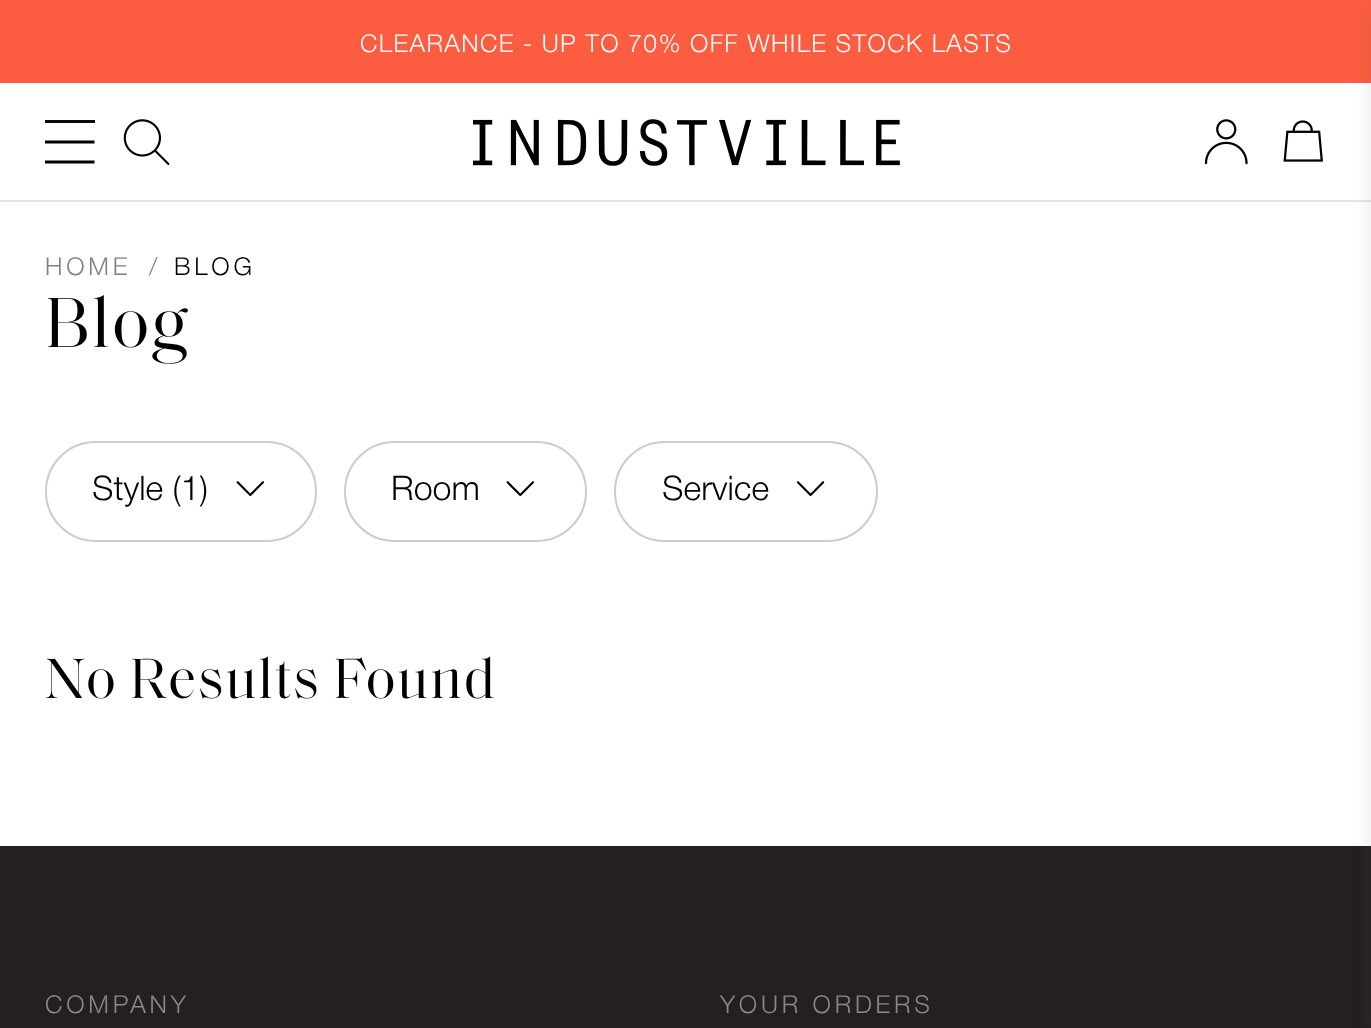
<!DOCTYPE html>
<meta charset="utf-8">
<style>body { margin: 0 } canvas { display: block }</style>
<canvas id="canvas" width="1371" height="1028"></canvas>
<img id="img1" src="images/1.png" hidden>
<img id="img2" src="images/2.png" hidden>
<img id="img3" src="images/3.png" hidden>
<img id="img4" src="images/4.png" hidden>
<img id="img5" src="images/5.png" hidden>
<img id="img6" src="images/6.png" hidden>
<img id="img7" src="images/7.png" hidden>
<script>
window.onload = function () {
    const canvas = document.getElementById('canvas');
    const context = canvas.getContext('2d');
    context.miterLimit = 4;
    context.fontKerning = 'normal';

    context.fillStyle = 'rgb(255, 255, 255)';
    context.fillRect(0, 0, 1371, 1028);
    context.fillStyle = 'rgb(252, 92, 64)';
    context.fillRect(0, 0, 1371, 83);
    context.fillStyle = 'rgb(230, 230, 230)';
    context.fillRect(0, 200, 1371, 2);
    context.fillStyle = 'rgb(36, 31, 33)';
    context.fillRect(0, 846, 1371, 182);
    context.fillStyle = 'rgba(99, 99, 99, 0.2)';
    context.filter = 'blur(9px)';
    context.beginPath();
    context.rect(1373, 5, 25, 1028);
    context.fill();
    context.filter = 'none';
    context.fillStyle = 'rgb(9, 9, 9)';
    context.fillRect(45, 120, 50, 3);
    context.beginPath();
    context.moveTo(94.5, 142);
    context.lineTo(45, 142);
    context.moveTo(94.5, 162);
    context.lineTo(45, 162);
    context.strokeStyle = 'rgb(0, 0, 0)';
    context.lineWidth = 2.9;
    context.stroke();
    context.drawImage(document.getElementById('img1'), 123, 119, 47, 46);
    context.drawImage(document.getElementById('img2'), 473, 119, 427, 47);
    context.drawImage(document.getElementById('img3'), 1204, 119, 44, 46);
    context.drawImage(document.getElementById('img4'), 1283, 120, 40, 42);
    context.beginPath();
    context.roundRect(46, 442, 270, 99, 49.5);
    context.strokeStyle = 'rgb(204, 204, 204)';
    context.lineWidth = 2;
    context.stroke();
    context.drawImage(document.getElementById('img5'), 236, 481, 28, 15);
    context.beginPath();
    context.roundRect(345, 442, 241, 99, 49.5);
    context.stroke();
    context.drawImage(document.getElementById('img6'), 506, 481, 28, 15);
    context.beginPath();
    context.roundRect(615, 442, 262, 99, 49.5);
    context.stroke();
    context.drawImage(document.getElementById('img7'), 796, 481, 29, 15);
    context.letterSpacing = '1.35px';
    context.font = '300 24.75px Helvetica Neue';
    context.fillStyle = 'rgb(255, 255, 255)';
    context.fillText('CLEARANCE - UP TO 70% OFF WHILE STOCK LASTS', 360, 52);
    context.letterSpacing = '3.75px';
    context.fillStyle = 'rgb(128, 128, 128)';
    context.fillText('HOME', 45, 275);
    context.fillText('/', 149, 275);
    context.fillStyle = 'rgb(0, 0, 0)';
    context.fillText('BLOG', 174, 275);
    context.letterSpacing = '2px';
    context.font = '72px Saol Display';
    context.fillText('Blog', 45, 347);
    context.letterSpacing = '0px';
    context.font = '300 34px Helvetica Neue';
    context.fillText('Style (1)', 92, 500);
    context.fillText('Room', 391, 500);
    context.fillText('Service', 662, 500);
    context.letterSpacing = '1.75px';
    context.font = '57.5px Saol Display';
    context.fillText('No Results Found', 45, 698);
    context.letterSpacing = '3.75px';
    context.font = '300 24.75px Helvetica Neue';
    context.fillStyle = 'rgb(139, 137, 135)';
    context.fillText('COMPANY', 45, 1013);
    context.fillText('YOUR ORDERS', 720, 1013);
};
</script>
